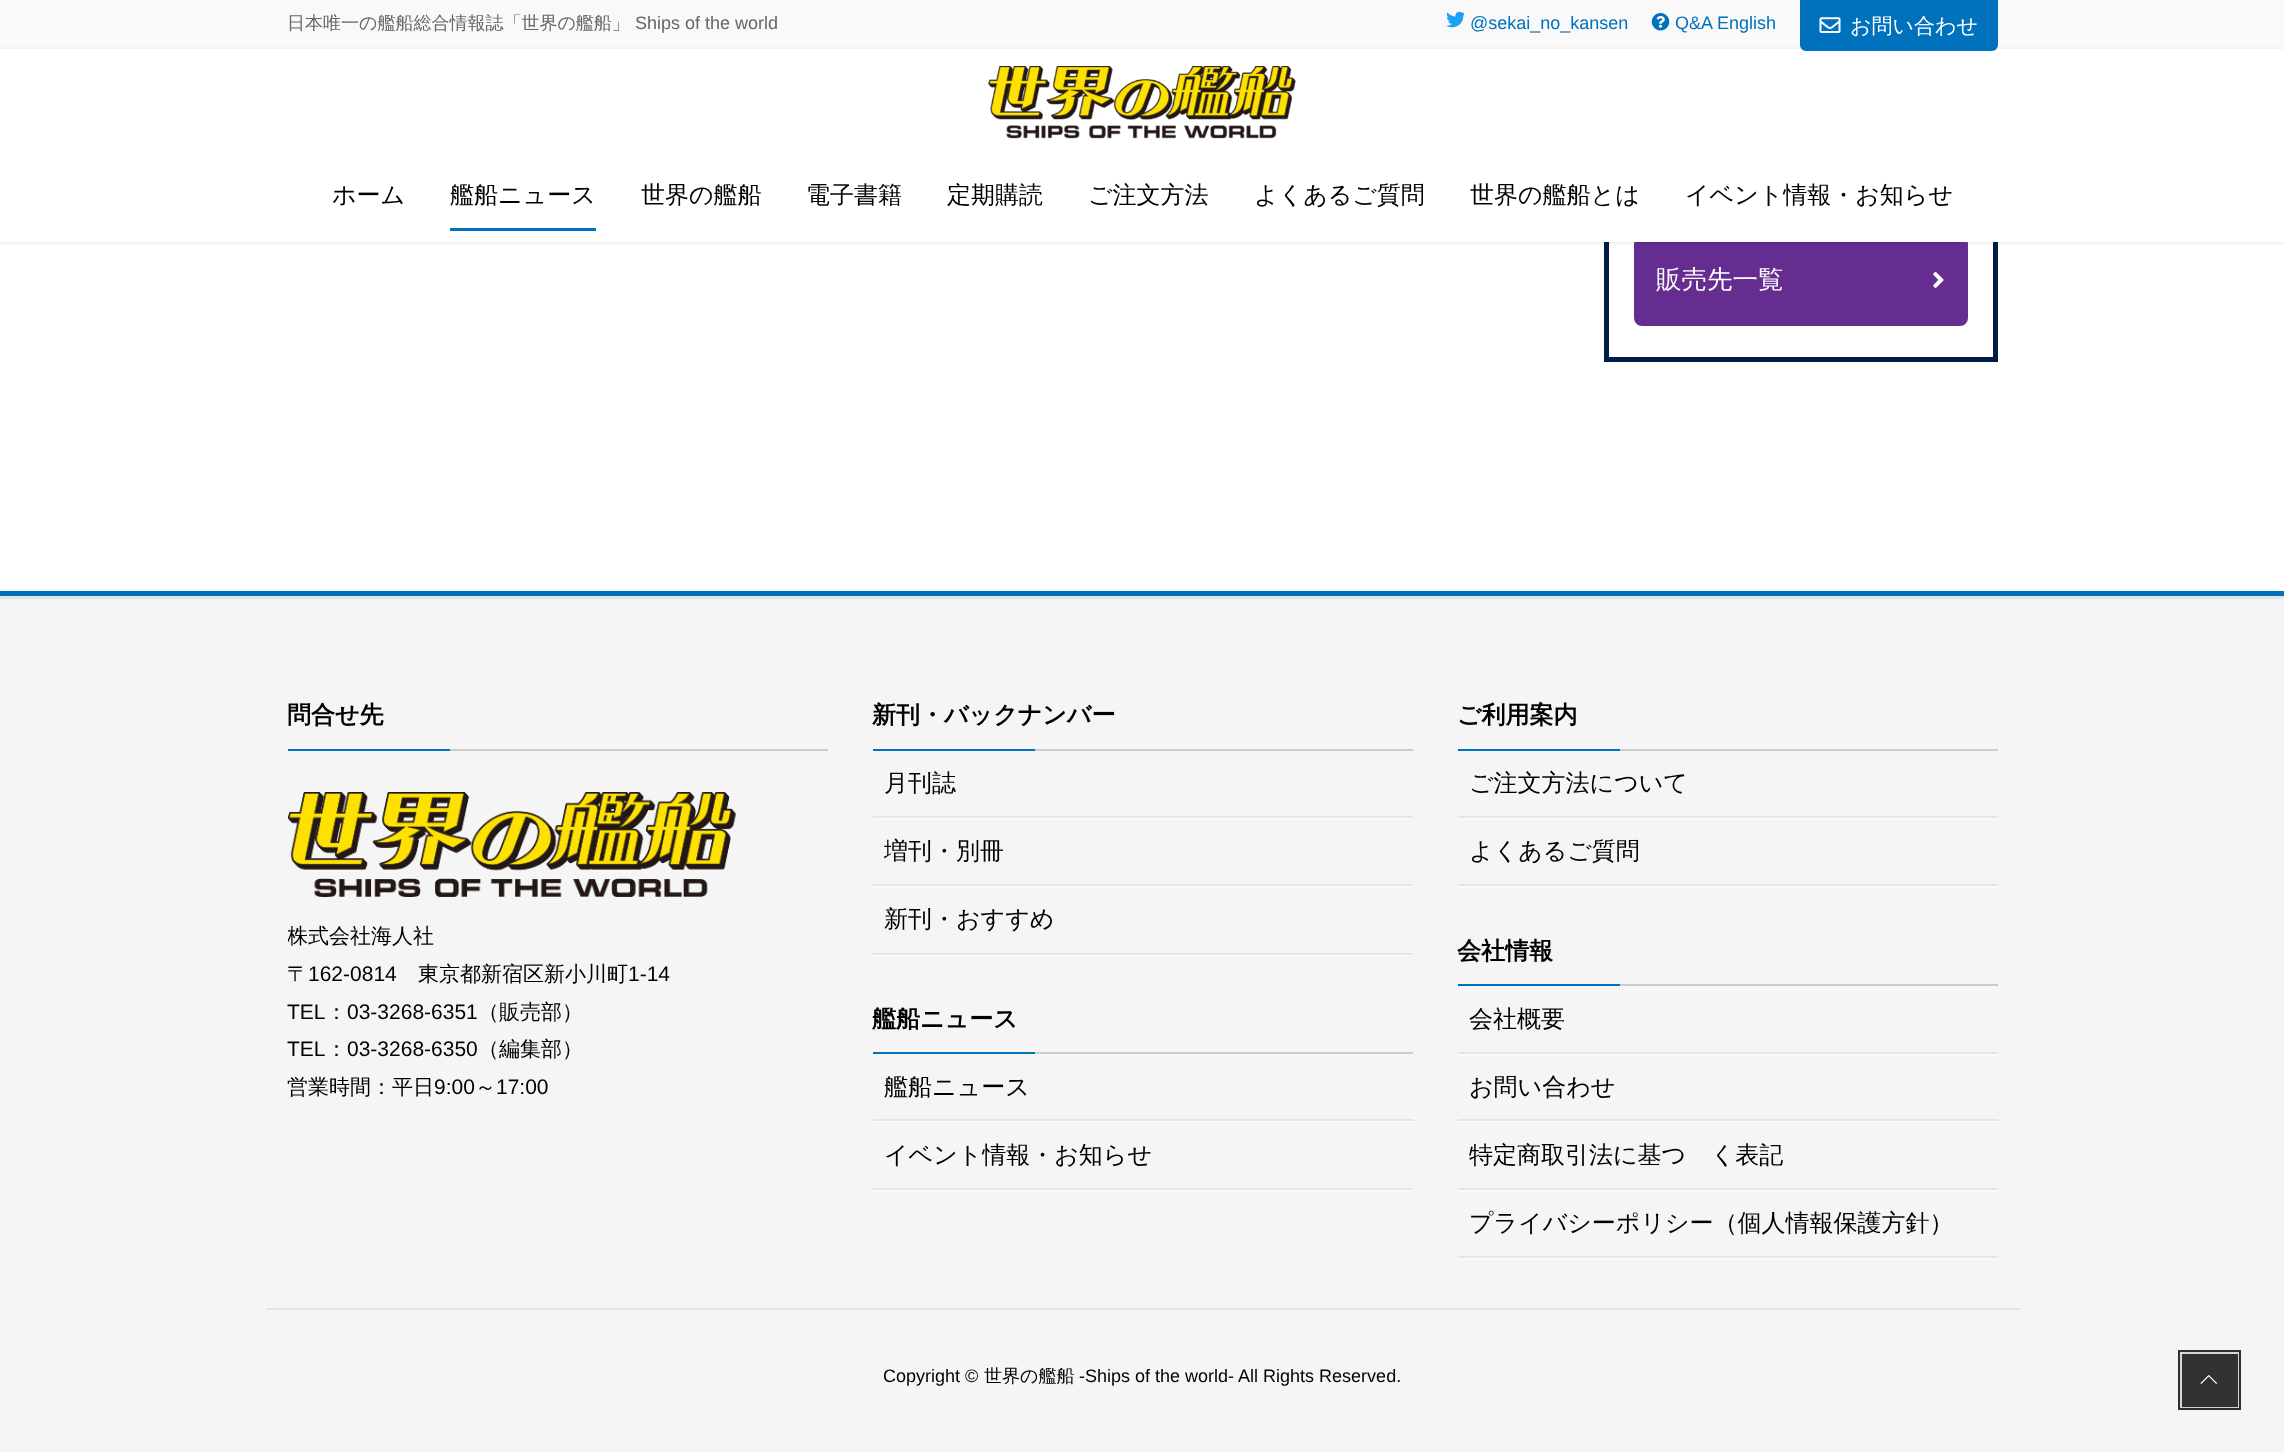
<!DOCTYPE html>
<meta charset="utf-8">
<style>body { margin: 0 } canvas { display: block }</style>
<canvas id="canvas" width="2284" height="1452"></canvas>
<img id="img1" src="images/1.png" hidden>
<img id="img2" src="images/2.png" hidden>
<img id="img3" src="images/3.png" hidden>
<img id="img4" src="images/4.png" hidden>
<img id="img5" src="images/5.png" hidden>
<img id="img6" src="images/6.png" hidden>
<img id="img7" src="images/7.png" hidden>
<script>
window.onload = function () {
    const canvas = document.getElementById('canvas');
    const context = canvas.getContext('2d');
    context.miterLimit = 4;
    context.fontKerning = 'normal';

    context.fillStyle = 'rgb(255, 255, 255)';
    context.fillRect(0, 0, 2284, 1452);
    context.strokeStyle = 'rgb(0, 29, 72)';
    context.lineWidth = 5;
    context.strokeRect(1606.5, -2.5, 389, 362);
    context.fillStyle = 'rgb(102, 45, 145)';
    context.beginPath();
    context.roundRect(1634, 236, 334, 90, 8);
    context.fill();
    context.fillStyle = 'rgba(0, 0, 0, 0.1)';
    context.filter = 'blur(2px)';
    context.beginPath();
    context.rect(0, 2, 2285, 241);
    context.fill();
    context.filter = 'none';
    context.fillStyle = 'rgb(255, 255, 255)';
    context.fillRect(0, 49, 2284, 193);
    context.fillStyle = 'rgb(249, 249, 249)';
    context.fillRect(0, 0, 2284, 47);
    context.fillStyle = 'rgb(243, 243, 243)';
    context.fillRect(0, 47, 2284, 2);
    context.drawImage(document.getElementById('img1'), 1446, 11, 18, 17);
    context.drawImage(document.getElementById('img2'), 1651, 13, 19, 18);
    context.fillStyle = 'rgb(0, 113, 188)';
    context.beginPath();
    context.roundRect(1801, 1, 196, 49, [0, 0, 5, 5]);
    context.fill();
    context.strokeStyle = 'rgb(0, 113, 188)';
    context.lineWidth = 2;
    context.stroke();
    context.drawImage(document.getElementById('img3'), 1819, 17, 22, 16);
    context.drawImage(document.getElementById('img4'), 988, 66, 308, 73);
    context.fillRect(450, 228, 146, 3);
    context.drawImage(document.getElementById('img5'), 1933, 272, 11, 16);
    context.fillStyle = 'rgb(245, 245, 245)';
    context.fillRect(0, 599, 2284, 853);
    context.fillStyle = 'rgb(0, 113, 188)';
    context.fillRect(0, 591, 2284, 5);
    context.fillStyle = 'rgb(229, 229, 229)';
    context.fillRect(0, 596, 2284, 3);
    context.fillStyle = 'rgb(204, 204, 204)';
    context.fillRect(450, 749, 378, 2);
    context.fillStyle = 'rgb(0, 113, 188)';
    context.fillRect(288, 749, 162, 2);
    context.drawImage(document.getElementById('img6'), 288, 792, 448, 105);
    context.fillStyle = 'rgb(204, 204, 204)';
    context.fillRect(1035, 749, 378, 2);
    context.fillStyle = 'rgb(0, 113, 188)';
    context.fillRect(873, 749, 162, 2);
    context.fillStyle = 'rgb(254, 254, 254)';
    context.fillRect(873, 818, 540, 1);
    context.fillStyle = 'rgb(229, 229, 229)';
    context.fillRect(873, 816, 540, 2);
    context.fillStyle = 'rgb(254, 254, 254)';
    context.fillRect(873, 886, 540, 1);
    context.fillStyle = 'rgb(229, 229, 229)';
    context.fillRect(873, 884, 540, 2);
    context.fillStyle = 'rgb(254, 254, 254)';
    context.fillRect(873, 955, 540, 1);
    context.fillStyle = 'rgb(229, 229, 229)';
    context.fillRect(873, 953, 540, 2);
    context.fillStyle = 'rgb(204, 204, 204)';
    context.fillRect(1035, 1052, 378, 2);
    context.fillStyle = 'rgb(0, 113, 188)';
    context.fillRect(873, 1052, 162, 2);
    context.fillStyle = 'rgb(254, 254, 254)';
    context.fillRect(873, 1121, 540, 1);
    context.fillStyle = 'rgb(229, 229, 229)';
    context.fillRect(873, 1119, 540, 2);
    context.fillStyle = 'rgb(254, 254, 254)';
    context.fillRect(873, 1190, 540, 1);
    context.fillStyle = 'rgb(229, 229, 229)';
    context.fillRect(873, 1188, 540, 2);
    context.fillStyle = 'rgb(204, 204, 204)';
    context.fillRect(1620, 749, 378, 2);
    context.fillStyle = 'rgb(0, 113, 188)';
    context.fillRect(1458, 749, 162, 2);
    context.fillStyle = 'rgb(254, 254, 254)';
    context.fillRect(1458, 818, 540, 1);
    context.fillStyle = 'rgb(229, 229, 229)';
    context.fillRect(1458, 816, 540, 2);
    context.fillStyle = 'rgb(254, 254, 254)';
    context.fillRect(1458, 886, 540, 1);
    context.fillStyle = 'rgb(229, 229, 229)';
    context.fillRect(1458, 884, 540, 2);
    context.fillStyle = 'rgb(204, 204, 204)';
    context.fillRect(1620, 984, 378, 2);
    context.fillStyle = 'rgb(0, 113, 188)';
    context.fillRect(1458, 984, 162, 2);
    context.fillStyle = 'rgb(254, 254, 254)';
    context.fillRect(1458, 1054, 540, 1);
    context.fillStyle = 'rgb(229, 229, 229)';
    context.fillRect(1458, 1052, 540, 2);
    context.fillStyle = 'rgb(254, 254, 254)';
    context.fillRect(1458, 1121, 540, 1);
    context.fillStyle = 'rgb(229, 229, 229)';
    context.fillRect(1458, 1119, 540, 2);
    context.fillStyle = 'rgb(254, 254, 254)';
    context.fillRect(1458, 1190, 540, 1);
    context.fillStyle = 'rgb(229, 229, 229)';
    context.fillRect(1458, 1188, 540, 2);
    context.fillStyle = 'rgb(254, 254, 254)';
    context.fillRect(1458, 1258, 540, 1);
    context.fillStyle = 'rgb(229, 229, 229)';
    context.fillRect(1458, 1256, 540, 2);
    context.fillRect(266, 1308, 1755, 2);
    context.fillStyle = 'rgb(49, 49, 49)';
    context.fillRect(2182, 1354, 56, 53);
    context.drawImage(document.getElementById('img7'), 2200, 1375, 18, 9);
    context.strokeStyle = 'rgb(214, 214, 214)';
    context.strokeRect(2181, 1353, 58, 55);
    context.strokeStyle = 'rgba(0, 0, 0, 0.8)';
    context.strokeRect(2179, 1351, 61, 58);
    context.font = '500 18px WenQuanYi Zen Hei';
    context.fillStyle = 'rgb(102, 102, 102)';
    context.fillText('日本唯一の艦船総合情報誌「世界の艦船」', 287, 29);
    context.font = '18px Liberation Sans';
    context.fillText('Ships of the world', 635, 29);
    context.fillStyle = 'rgb(0, 113, 188)';
    context.fillText('@sekai_no_kansen', 1470, 29);
    context.fillText('Q&A English', 1675, 29);
    context.font = '500 21px WenQuanYi Zen Hei';
    context.fillStyle = 'rgb(255, 255, 255)';
    context.fillText('お問い合わせ', 1850, 33);
    context.font = '500 24px WenQuanYi Zen Hei';
    context.fillStyle = 'rgb(0, 0, 0)';
    context.fillText('ホーム', 332, 203);
    context.fillText('艦船ニュース', 450, 203);
    context.fillText('世界の艦船', 641, 203);
    context.fillText('電子書籍', 806, 203);
    context.fillText('定期購読', 947, 203);
    context.fillText('ご注文方法', 1088, 203);
    context.fillText('よくあるご質問', 1254, 203);
    context.fillText('世界の艦船とは', 1470, 203);
    context.fillText('イベント情報・お知らせ', 1685, 203);
    context.font = '500 25.5px WenQuanYi Zen Hei';
    context.fillStyle = 'rgb(255, 255, 255)';
    context.fillText('販売先一覧', 1656, 288);
    context.font = 'bold 24px WenQuanYi Zen Hei';
    context.fillStyle = 'rgb(0, 0, 0)';
    context.fillText('問合せ先', 287, 723);
    context.save();
    context.beginPath();
    context.rect(288, 773, 540, 355);
    context.clip();
    context.font = '500 21px WenQuanYi Zen Hei';
    context.fillText('株式会社海人社', 287, 943);
    context.restore();
    context.font = '500 21px WenQuanYi Zen Hei';
    context.fillText('〒', 287, 981);
    context.font = '21px Liberation Sans';
    context.fillText('162-0814', 308, 981);
    context.font = '500 21px WenQuanYi Zen Hei';
    context.fillText('東京都新宿区新小川町', 418, 981);
    context.font = '21px Liberation Sans';
    context.fillText('1-14', 628, 981);
    context.fillText('TEL', 287, 1019);
    context.font = '500 21px WenQuanYi Zen Hei';
    context.fillText('：', 326, 1019);
    context.font = '21px Liberation Sans';
    context.fillText('03-3268-6351', 347, 1019);
    context.font = '500 21px WenQuanYi Zen Hei';
    context.fillText('（販売部）', 478, 1019);
    context.font = '21px Liberation Sans';
    context.fillText('TEL', 287, 1056);
    context.font = '500 21px WenQuanYi Zen Hei';
    context.fillText('：', 326, 1056);
    context.font = '21px Liberation Sans';
    context.fillText('03-3268-6350', 347, 1056);
    context.font = '500 21px WenQuanYi Zen Hei';
    context.fillText('（編集部）', 478, 1056);
    context.fillText('営業時間：平日', 287, 1094);
    context.font = '21px Liberation Sans';
    context.fillText('9:00', 434, 1094);
    context.font = '500 21px WenQuanYi Zen Hei';
    context.fillText('～', 475, 1094);
    context.font = '21px Liberation Sans';
    context.fillText('17:00', 496, 1094);
    context.font = 'bold 24px WenQuanYi Zen Hei';
    context.fillText('新刊・バックナンバー', 872, 723);
    context.font = '500 24px WenQuanYi Zen Hei';
    context.fillText('月刊誌', 884, 791);
    context.fillText('増刊・別冊', 884, 859);
    context.fillText('新刊・おすすめ', 884, 927);
    context.font = 'bold 24px WenQuanYi Zen Hei';
    context.fillText('艦船ニュース', 872, 1027);
    context.font = '500 24px WenQuanYi Zen Hei';
    context.fillText('艦船ニュース', 884, 1095);
    context.fillText('イベント情報・お知らせ', 884, 1163);
    context.font = 'bold 24px WenQuanYi Zen Hei';
    context.fillText('ご利用案内', 1457, 723);
    context.font = '500 24px WenQuanYi Zen Hei';
    context.fillText('ご注文方法について', 1469, 791);
    context.fillText('よくあるご質問', 1469, 859);
    context.font = 'bold 24px WenQuanYi Zen Hei';
    context.fillText('会社情報', 1457, 959);
    context.font = '500 24px WenQuanYi Zen Hei';
    context.fillText('会社概要', 1469, 1027);
    context.fillText('お問い合わせ', 1469, 1095);
    context.fillText('特定商取引法に基づく表記', 1469, 1163);
    context.fillText('プライバシーポリシー（個人情報保護方針）', 1469, 1231);
    context.font = '18px Liberation Sans';
    context.fillText('Copyright ©', 883, 1382);
    context.font = '500 18px WenQuanYi Zen Hei';
    context.fillText('世界の艦船', 984, 1382);
    context.font = '18px Liberation Sans';
    context.fillText('-Ships of the world- All Rights Reserved.', 1079, 1382);
};
</script>
